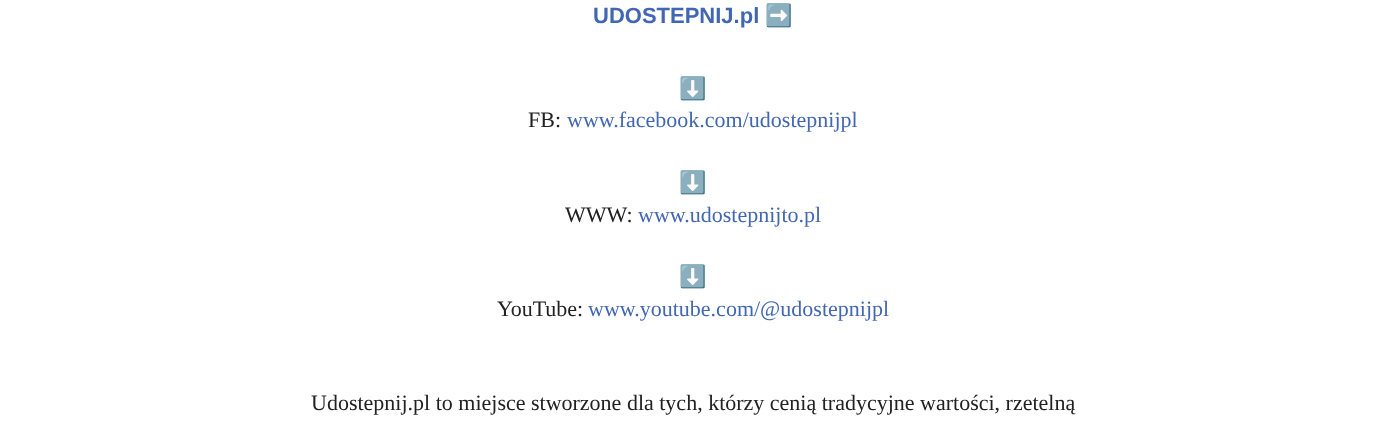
<!DOCTYPE html>
<meta charset="utf-8">
<style>body { margin: 0 } canvas { display: block }</style>
<canvas id="canvas" width="1386" height="433"></canvas>
<script>
window.onload = function () {
    const canvas = document.getElementById('canvas');
    const context = canvas.getContext('2d');
    context.miterLimit = 4;
    context.fontKerning = 'normal';

    context.fillStyle = 'rgb(255, 255, 255)';
    context.fillRect(0, 0, 1386, 433);
    context.font = 'bold 22px Liberation Sans';
    context.fillStyle = 'rgb(66, 103, 178)';
    context.fillText('UDOSTEPNIJ.pl', 593, 23);
    context.font = '22px Noto Color Emoji';
    context.fillText('➡️', 765, 23);
    context.fillStyle = 'rgb(33, 33, 33)';
    context.fillText('⬇️', 679, 96);
    context.font = '22px Liberation Serif';
    context.fillText('FB:', 528, 127);
    context.fillStyle = 'rgb(66, 103, 178)';
    context.fillText('www.facebook.com/udostepnijpl', 567, 127);
    context.font = '22px Noto Color Emoji';
    context.fillStyle = 'rgb(33, 33, 33)';
    context.fillText('⬇️', 679, 190);
    context.font = '22px Liberation Serif';
    context.fillText('WWW:', 565, 222);
    context.fillStyle = 'rgb(66, 103, 178)';
    context.fillText('www.udostepnijto.pl', 638, 222);
    context.font = '22px Noto Color Emoji';
    context.fillStyle = 'rgb(33, 33, 33)';
    context.fillText('⬇️', 679, 284);
    context.font = '22px Liberation Serif';
    context.fillText('YouTube:', 497, 316);
    context.fillStyle = 'rgb(66, 103, 178)';
    context.fillText('www.youtube.com/@udostepnijpl', 588, 316);
    context.fillStyle = 'rgb(33, 33, 33)';
    context.fillText('Udostepnij.pl to miejsce stworzone dla tych, którzy cenią tradycyjne wartości, rzetelną', 311, 410);
};
</script>
